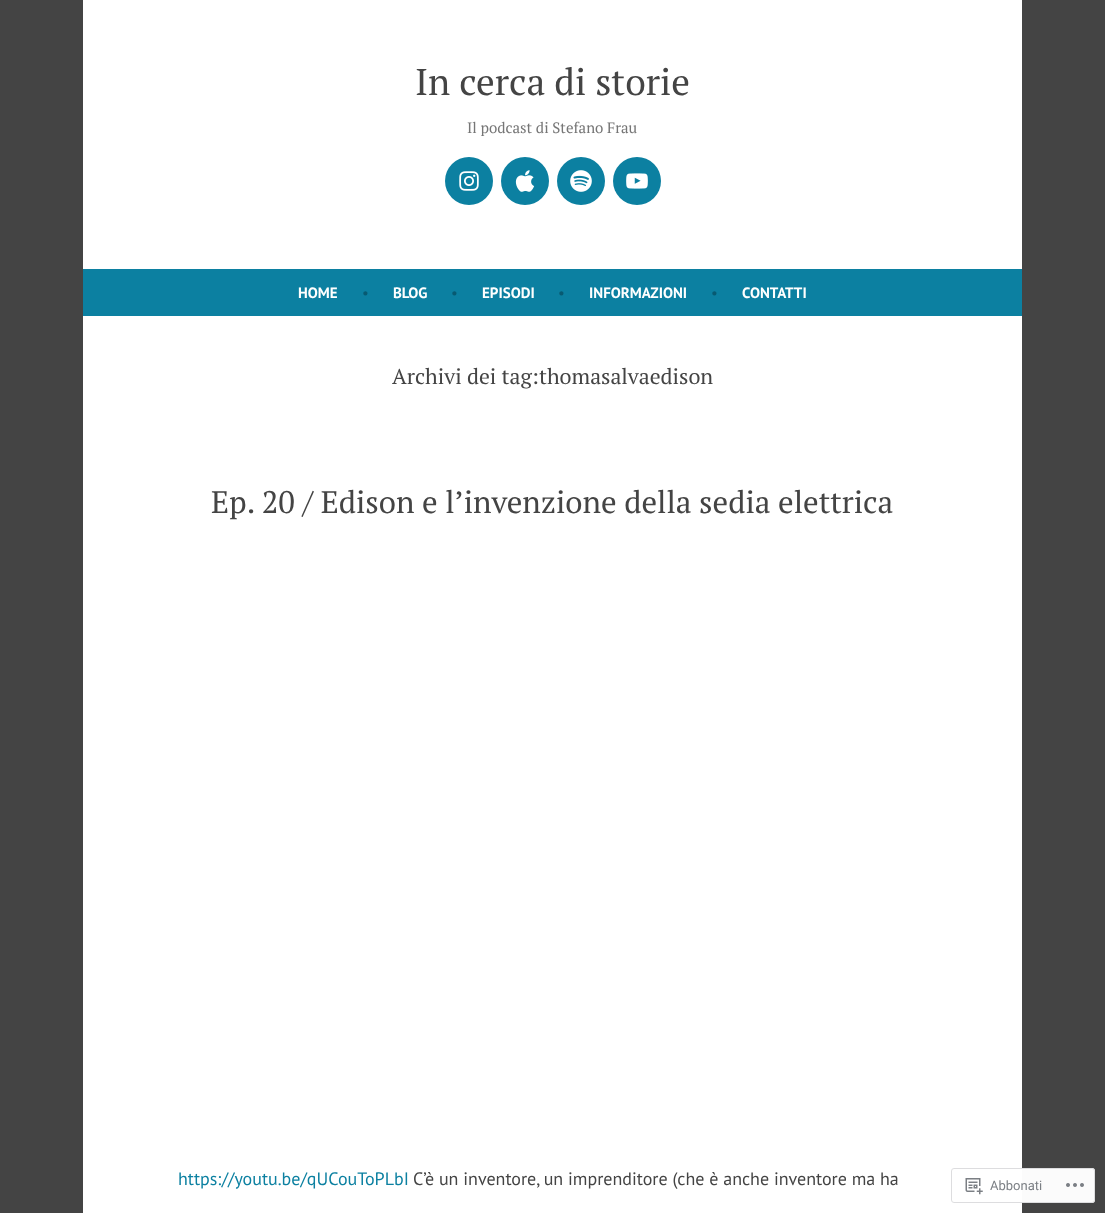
<!DOCTYPE html>
<meta charset="utf-8">
<style>body { margin: 0 } canvas { display: block }</style>
<canvas id="canvas" width="1105" height="1213"></canvas>
<img id="img1" src="images/1.png" hidden>
<img id="img2" src="images/2.png" hidden>
<img id="img3" src="images/3.png" hidden>
<img id="img4" src="images/4.png" hidden>
<img id="img5" src="images/5.png" hidden>
<img id="img6" src="images/6.png" hidden>
<script>
window.onload = function () {
    const canvas = document.getElementById('canvas');
    const context = canvas.getContext('2d');
    context.miterLimit = 4;
    context.fontKerning = 'normal';

    context.fillStyle = 'rgb(68, 68, 68)';
    context.fillRect(0, 0, 1105, 1213);
    context.fillStyle = 'rgb(255, 255, 255)';
    context.fillRect(83, 0, 939, 1213);
    context.fillStyle = 'rgb(12, 128, 161)';
    context.beginPath();
    context.arc(469, 181, 24, 0, 2 * Math.PI);
    context.fill();
    context.drawImage(document.getElementById('img1'), 459, 171, 20, 20);
    context.beginPath();
    context.arc(525, 181, 24, 0, 2 * Math.PI);
    context.fill();
    context.drawImage(document.getElementById('img2'), 515, 170, 20, 22);
    context.beginPath();
    context.arc(581, 181, 24, 0, 2 * Math.PI);
    context.fill();
    context.drawImage(document.getElementById('img3'), 570, 170, 22, 22);
    context.beginPath();
    context.arc(637, 181, 24, 0, 2 * Math.PI);
    context.fill();
    context.drawImage(document.getElementById('img4'), 626, 173, 22, 16);
    context.fillRect(83, 269, 939, 47);
    context.fillStyle = 'rgba(255, 255, 255, 0.98)';
    context.beginPath();
    context.roundRect(951, 1168, 144, 35, 3);
    context.fill();
    context.beginPath();
    context.roundRect(951.5, 1168.5, 143, 34, 2.5);
    context.strokeStyle = 'rgba(220, 220, 222, 0.98)';
    context.stroke();
    context.drawImage(document.getElementById('img5'), 965, 1178, 18, 17);
    context.drawImage(document.getElementById('img6'), 1066, 1183, 18, 4);
    context.font = '37.25px PT Serif';
    context.fillStyle = 'rgb(68, 68, 68)';
    context.fillText('In cerca di storie', 415, 95);
    context.font = '15px PT Serif';
    context.fillStyle = 'rgb(118, 118, 118)';
    context.fillText('Il podcast di Stefano Frau', 467, 133);
    context.font = 'bold 15px PT Sans';
    context.fillStyle = 'rgb(255, 255, 255)';
    context.fillText('HOME', 298, 298);
    context.font = '15px PT Sans';
    context.fillStyle = 'rgb(8, 90, 114)';
    context.fillText('•', 362, 298);
    context.font = 'bold 15px PT Sans';
    context.fillStyle = 'rgb(255, 255, 255)';
    context.fillText('BLOG', 393, 298);
    context.font = '15px PT Sans';
    context.fillStyle = 'rgb(8, 90, 114)';
    context.fillText('•', 451, 298);
    context.font = 'bold 15px PT Sans';
    context.fillStyle = 'rgb(255, 255, 255)';
    context.fillText('EPISODI', 482, 298);
    context.font = '15px PT Sans';
    context.fillStyle = 'rgb(8, 90, 114)';
    context.fillText('•', 558, 298);
    context.font = 'bold 15px PT Sans';
    context.fillStyle = 'rgb(255, 255, 255)';
    context.fillText('INFORMAZIONI', 589, 298);
    context.font = '15px PT Sans';
    context.fillStyle = 'rgb(8, 90, 114)';
    context.fillText('•', 711, 298);
    context.font = 'bold 15px PT Sans';
    context.fillStyle = 'rgb(255, 255, 255)';
    context.fillText('CONTATTI', 742, 298);
    context.font = '21.6px PT Serif';
    context.fillStyle = 'rgb(68, 68, 68)';
    context.fillText('Archivi dei tag:thomasalvaedison', 392, 384);
    context.font = '31.1px PT Serif';
    context.fillText('Ep. 20 / Edison e l’invenzione della sedia elettrica', 211, 513);
    context.font = '18px PT Sans';
    context.fillStyle = 'rgb(12, 128, 161)';
    context.fillText('https://youtu.be/qUCouToPLbI', 178, 1185);
    context.fillStyle = 'rgb(68, 68, 68)';
    context.fillText('C’è un inventore, un imprenditore (che è anche inventore ma ha', 413, 1185);
    context.font = '13px Roboto';
    context.fillStyle = 'rgb(123, 127, 132)';
    context.fillText('Abbonati', 990, 1190);
};
</script>
